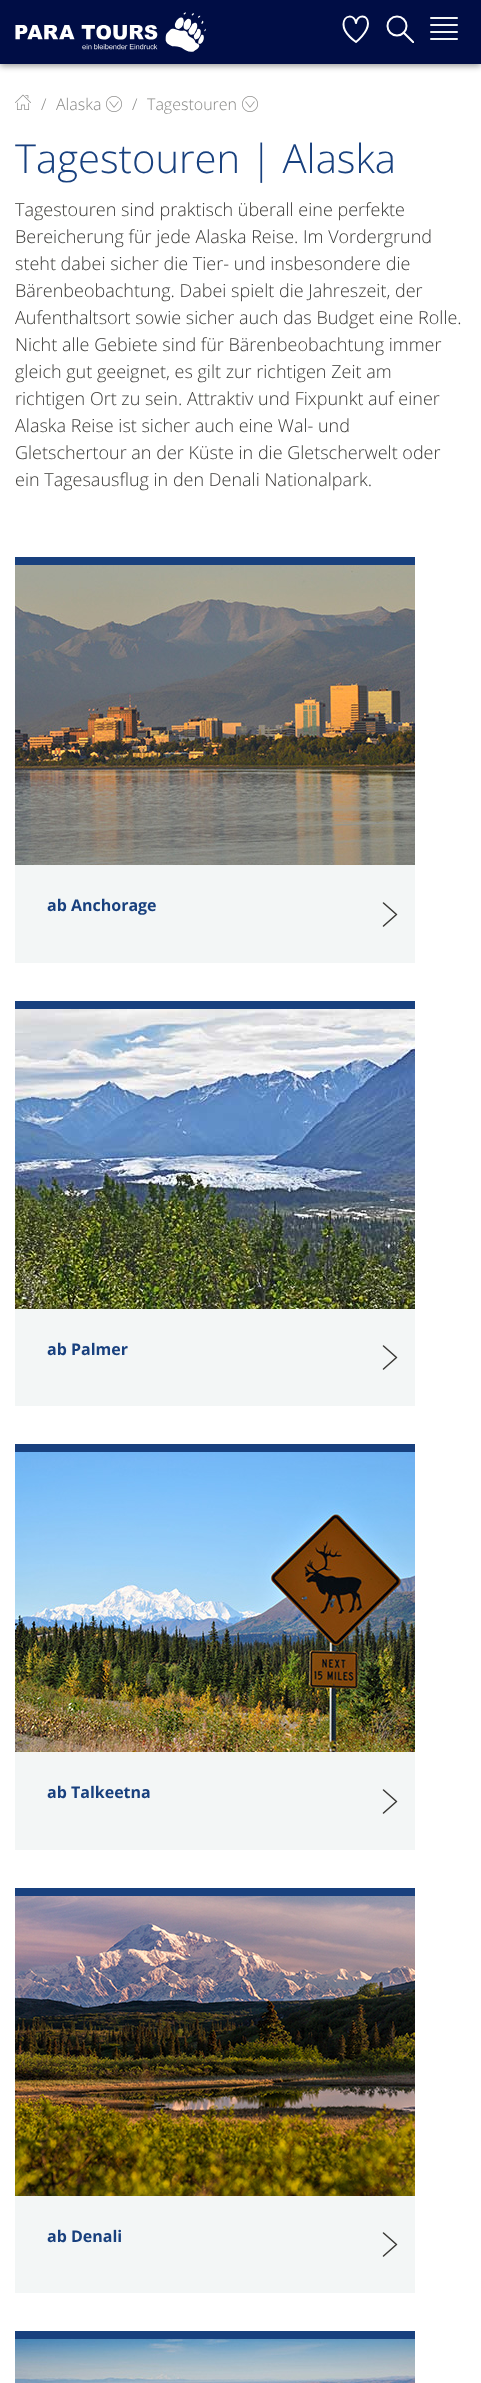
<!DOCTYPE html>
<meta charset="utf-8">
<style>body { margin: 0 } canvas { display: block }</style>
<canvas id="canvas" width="481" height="2383"></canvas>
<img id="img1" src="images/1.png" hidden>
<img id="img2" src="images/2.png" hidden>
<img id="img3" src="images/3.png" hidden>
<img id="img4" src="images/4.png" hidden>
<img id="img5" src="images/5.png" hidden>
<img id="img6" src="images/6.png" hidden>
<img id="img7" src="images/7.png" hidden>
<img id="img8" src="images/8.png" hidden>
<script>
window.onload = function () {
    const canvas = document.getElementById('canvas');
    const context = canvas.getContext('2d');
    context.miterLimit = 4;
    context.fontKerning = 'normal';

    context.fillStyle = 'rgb(255, 255, 255)';
    context.fillRect(0, 0, 481, 2383);
    context.fillStyle = 'rgba(0, 0, 0, 0.4)';
    context.filter = 'blur(3px)';
    context.beginPath();
    context.rect(0, 2, 481, 64);
    context.fill();
    context.filter = 'none';
    context.fillStyle = 'rgb(0, 13, 69)';
    context.fillRect(0, 0, 481, 64);
    context.drawImage(document.getElementById('img1'), 15, 12, 191, 40);
    context.beginPath();
    context.moveTo(356, 42);
    context.bezierCurveTo(356, 42, 368, 32.5, 368, 23.5);
    context.bezierCurveTo(368, 14.5, 357.5, 14, 356, 23);
    context.bezierCurveTo(354.5, 14, 343.5, 14.5, 343.5, 24.5);
    context.bezierCurveTo(343.5, 34, 356, 42, 356, 42);
    context.closePath();
    context.strokeStyle = 'rgb(255, 255, 255)';
    context.lineWidth = 2;
    context.lineJoin = 'round';
    context.stroke();
    context.beginPath();
    context.arc(397, 26, 9.5, 0, 2 * Math.PI);
    context.stroke();
    context.save();
    context.beginPath();
    context.rect(386, 15, 28, 28);
    context.clip();
    context.beginPath();
    context.moveTo(403.5, 32.5);
    context.lineTo(414.5, 43.5);
    context.lineCap = 'round';
    context.stroke();
    context.restore();
    context.fillStyle = 'rgb(243, 246, 246)';
    context.beginPath();
    context.roundRect(430, 17, 28, 2, 1);
    context.fill();
    context.beginPath();
    context.roundRect(430, 24, 28, 2, 1);
    context.fill();
    context.beginPath();
    context.roundRect(430, 31, 28, 2, 1);
    context.fill();
    context.beginPath();
    context.roundRect(430, 38, 28, 2, 1);
    context.fill();
    context.drawImage(document.getElementById('img2'), 15, 94, 16, 16);
    context.drawImage(document.getElementById('img3'), 106, 96, 16, 16);
    context.drawImage(document.getElementById('img3'), 242, 96, 16, 16);
    context.fillRect(15, 865, 400, 98);
    context.fillStyle = 'rgb(24, 64, 126)';
    context.fillRect(15, 557, 400, 8);
    context.drawImage(document.getElementById('img4'), 15, 565, 400, 300);
    context.beginPath();
    context.moveTo(383.5, 926);
    context.lineTo(396.5, 914.5);
    context.lineTo(383.5, 903);
    context.strokeStyle = 'rgb(57, 56, 53)';
    context.lineWidth = 1.5;
    context.lineCap = 'round';
    context.stroke();
    context.fillStyle = 'rgb(243, 246, 246)';
    context.fillRect(15, 1309, 400, 97);
    context.fillStyle = 'rgb(24, 64, 126)';
    context.fillRect(15, 1001, 400, 8);
    context.drawImage(document.getElementById('img5'), 15, 1009, 400, 300);
    context.beginPath();
    context.moveTo(383.5, 1369);
    context.lineTo(396.5, 1357.5);
    context.lineTo(383.5, 1346);
    context.stroke();
    context.fillStyle = 'rgb(243, 246, 246)';
    context.fillRect(15, 1752, 400, 98);
    context.fillStyle = 'rgb(24, 64, 126)';
    context.fillRect(15, 1444, 400, 8);
    context.drawImage(document.getElementById('img6'), 15, 1452, 400, 300);
    context.beginPath();
    context.moveTo(383.5, 1813);
    context.lineTo(396.5, 1801.5);
    context.lineTo(383.5, 1790);
    context.stroke();
    context.fillStyle = 'rgb(243, 246, 246)';
    context.fillRect(15, 2196, 400, 97);
    context.fillStyle = 'rgb(24, 64, 126)';
    context.fillRect(15, 1888, 400, 8);
    context.drawImage(document.getElementById('img7'), 15, 1896, 400, 300);
    context.beginPath();
    context.moveTo(383.5, 2256);
    context.lineTo(396.5, 2244.5);
    context.lineTo(383.5, 2233);
    context.stroke();
    context.fillRect(15, 2331, 400, 8);
    context.drawImage(document.getElementById('img8'), 15, 2339, 400, 44);
    context.font = '300 16px Open Sans';
    context.fillStyle = 'rgb(136, 136, 134)';
    context.fillText('/', 41, 110);
    context.fillText('Alaska', 56, 110);
    context.fillText('/', 132, 110);
    context.fillText('Tagestouren', 147, 110);
    context.font = '300 40px Open Sans';
    context.fillStyle = 'rgb(24, 64, 126)';
    context.fillText('Tagestouren | Alaska', 15, 173);
    context.font = '300 18px Open Sans';
    context.fillStyle = 'rgb(57, 56, 53)';
    context.fillText('Tagestouren sind praktisch überall eine perfekte', 15, 216);
    context.fillText('Bereicherung für jede Alaska Reise. Im Vordergrund', 15, 243);
    context.fillText('steht dabei sicher die Tier- und insbesondere die', 15, 270);
    context.fillText('Bärenbeobachtung. Dabei spielt die Jahreszeit, der', 15, 297);
    context.fillText('Aufenthaltsort sowie sicher auch das Budget eine Rolle.', 15, 324);
    context.fillText('Nicht alle Gebiete sind für Bärenbeobachtung immer', 15, 351);
    context.fillText('gleich gut geeignet, es gilt zur richtigen Zeit am', 15, 378);
    context.fillText('richtigen Ort zu sein. Attraktiv und Fixpunkt auf einer', 15, 405);
    context.fillText('Alaska Reise ist sicher auch eine Wal- und', 15, 432);
    context.fillText('Gletschertour an der Küste in die Gletscherwelt oder', 15, 459);
    context.fillText('ein Tagesausflug in den Denali Nationalpark.', 15, 486);
    context.font = 'bold 16px Open Sans';
    context.fillStyle = 'rgb(24, 64, 126)';
    context.fillText('ab Anchorage', 47, 911);
    context.fillText('ab Palmer', 47, 1355);
    context.fillText('ab Talkeetna', 47, 1798);
    context.fillText('ab Denali', 47, 2242);
};
</script>
